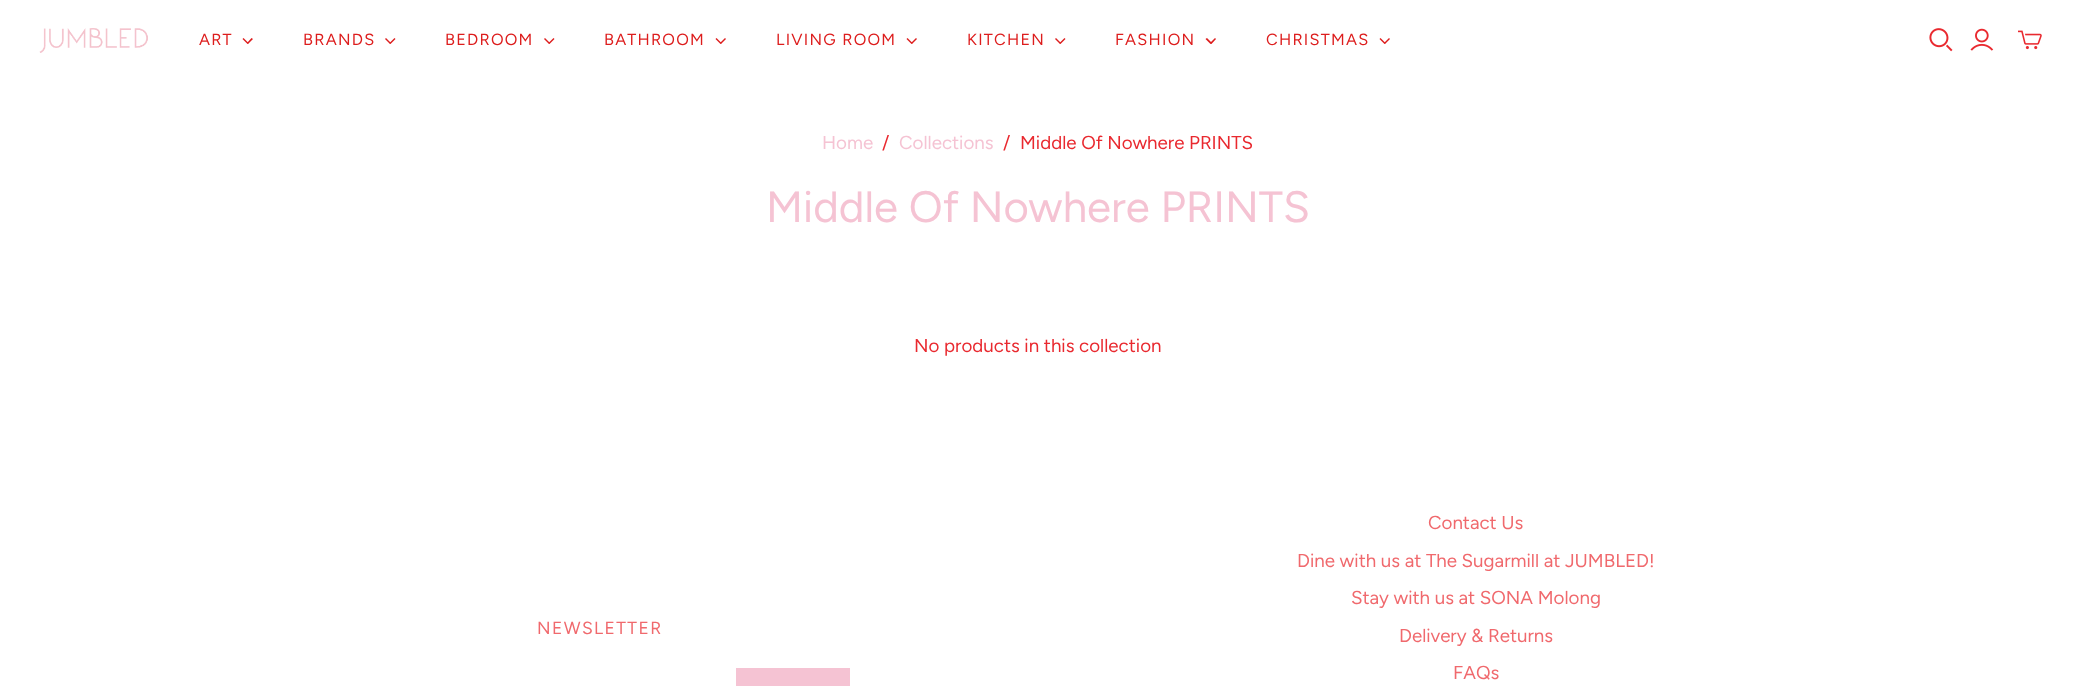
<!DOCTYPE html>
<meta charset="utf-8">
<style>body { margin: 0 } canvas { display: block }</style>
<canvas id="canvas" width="2074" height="686"></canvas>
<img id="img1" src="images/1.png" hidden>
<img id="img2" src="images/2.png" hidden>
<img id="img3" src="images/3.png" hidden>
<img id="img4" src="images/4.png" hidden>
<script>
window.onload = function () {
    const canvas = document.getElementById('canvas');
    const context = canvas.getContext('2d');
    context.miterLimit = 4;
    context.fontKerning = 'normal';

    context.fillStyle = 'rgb(255, 255, 255)';
    context.fillRect(0, 0, 2074, 686);
    context.drawImage(document.getElementById('img1'), 39, 28, 109, 25);
    context.fillStyle = 'rgb(221, 29, 29)';
    context.beginPath();
    context.moveTo(251.5, 38);
    context.lineTo(253, 39);
    context.lineTo(248, 44);
    context.lineTo(247, 43);
    context.closePath();
    context.fill();
    context.beginPath();
    context.moveTo(243.5, 38);
    context.lineTo(248.5, 43);
    context.lineTo(247.5, 44);
    context.lineTo(242.5, 39);
    context.closePath();
    context.fill();
    context.beginPath();
    context.moveTo(394.5, 38);
    context.lineTo(395.5, 39);
    context.lineTo(390.5, 44);
    context.lineTo(389.5, 43);
    context.closePath();
    context.fill();
    context.beginPath();
    context.moveTo(386, 38);
    context.lineTo(391, 43);
    context.lineTo(390, 44);
    context.lineTo(385, 39);
    context.closePath();
    context.fill();
    context.beginPath();
    context.moveTo(553.5, 38);
    context.lineTo(554.5, 39);
    context.lineTo(549.5, 44);
    context.lineTo(548.5, 43);
    context.closePath();
    context.fill();
    context.beginPath();
    context.moveTo(545, 38);
    context.lineTo(550, 43);
    context.lineTo(549, 44);
    context.lineTo(544, 39);
    context.closePath();
    context.fill();
    context.beginPath();
    context.moveTo(725, 38);
    context.lineTo(726, 39);
    context.lineTo(721, 44);
    context.lineTo(720, 43);
    context.closePath();
    context.fill();
    context.beginPath();
    context.moveTo(716.5, 38);
    context.lineTo(721.5, 43);
    context.lineTo(720.5, 44);
    context.lineTo(715.5, 39);
    context.closePath();
    context.fill();
    context.beginPath();
    context.moveTo(916, 38);
    context.lineTo(917, 39);
    context.lineTo(912, 44);
    context.lineTo(911, 43);
    context.closePath();
    context.fill();
    context.beginPath();
    context.moveTo(907.5, 38);
    context.lineTo(912.5, 43);
    context.lineTo(911.5, 44);
    context.lineTo(906.5, 39);
    context.closePath();
    context.fill();
    context.beginPath();
    context.moveTo(1064.5, 38);
    context.lineTo(1065.5, 39);
    context.lineTo(1060.5, 44);
    context.lineTo(1059.5, 43);
    context.closePath();
    context.fill();
    context.beginPath();
    context.moveTo(1056, 38);
    context.lineTo(1061, 43);
    context.lineTo(1060, 44);
    context.lineTo(1055, 39);
    context.closePath();
    context.fill();
    context.beginPath();
    context.moveTo(1215, 38);
    context.lineTo(1216, 39);
    context.lineTo(1211.5, 44);
    context.lineTo(1210, 43);
    context.closePath();
    context.fill();
    context.beginPath();
    context.moveTo(1207, 38);
    context.lineTo(1212, 43);
    context.lineTo(1210.5, 44);
    context.lineTo(1205.5, 39);
    context.closePath();
    context.fill();
    context.beginPath();
    context.moveTo(1389, 38);
    context.lineTo(1390, 39);
    context.lineTo(1385, 44);
    context.lineTo(1384, 43);
    context.closePath();
    context.fill();
    context.beginPath();
    context.moveTo(1380.5, 38);
    context.lineTo(1385.5, 43);
    context.lineTo(1384.5, 44);
    context.lineTo(1379.5, 39);
    context.closePath();
    context.fill();
    context.drawImage(document.getElementById('img2'), 1929, 28, 24, 24);
    context.drawImage(document.getElementById('img3'), 1970, 28, 24, 23);
    context.drawImage(document.getElementById('img4'), 2018, 30, 24, 20);
    context.fillStyle = 'rgb(245, 195, 211)';
    context.fillRect(736, 668, 114, 18);
    context.letterSpacing = '1.25px';
    context.font = '16.25px Figtree';
    context.fillStyle = 'rgb(221, 29, 29)';
    context.fillText('ART', 199, 45);
    context.fillText('BRANDS', 303, 45);
    context.fillText('BEDROOM', 445, 45);
    context.fillText('BATHROOM', 604, 45);
    context.fillText('LIVING ROOM', 776, 45);
    context.fillText('KITCHEN', 967, 45);
    context.fillText('FASHION', 1115, 45);
    context.fillText('CHRISTMAS', 1266, 45);
    context.letterSpacing = '0px';
    context.font = '18.75px Figtree';
    context.fillStyle = 'rgb(245, 195, 211)';
    context.fillText('Home', 822, 149);
    context.fillStyle = 'rgb(233, 41, 47)';
    context.fillText('/', 882, 149);
    context.fillStyle = 'rgb(245, 195, 211)';
    context.fillText('Collections', 899, 149);
    context.fillStyle = 'rgb(233, 41, 47)';
    context.fillText('/', 1003, 149);
    context.fillText('Middle Of Nowhere PRINTS', 1020, 149);
    context.font = '43.75px Figtree';
    context.fillStyle = 'rgb(245, 195, 211)';
    context.fillText('Middle Of Nowhere PRINTS', 766, 222);
    context.font = '18.75px Figtree';
    context.fillStyle = 'rgb(233, 41, 47)';
    context.fillText('No products in this collection', 914, 352);
    context.letterSpacing = '1.4px';
    context.font = '17.5px Figtree';
    context.fillStyle = 'rgb(240, 105, 109)';
    context.fillText('NEWSLETTER', 537, 634);
    context.letterSpacing = '0px';
    context.font = '18.75px Figtree';
    context.fillText('Contact Us', 1428, 529);
    context.fillText('Dine with us at The Sugarmill at JUMBLED!', 1297, 567);
    context.fillText('Stay with us at SONA Molong', 1351, 604);
    context.fillText('Delivery & Returns', 1399, 642);
    context.fillText('FAQs', 1453, 679);
};
</script>
